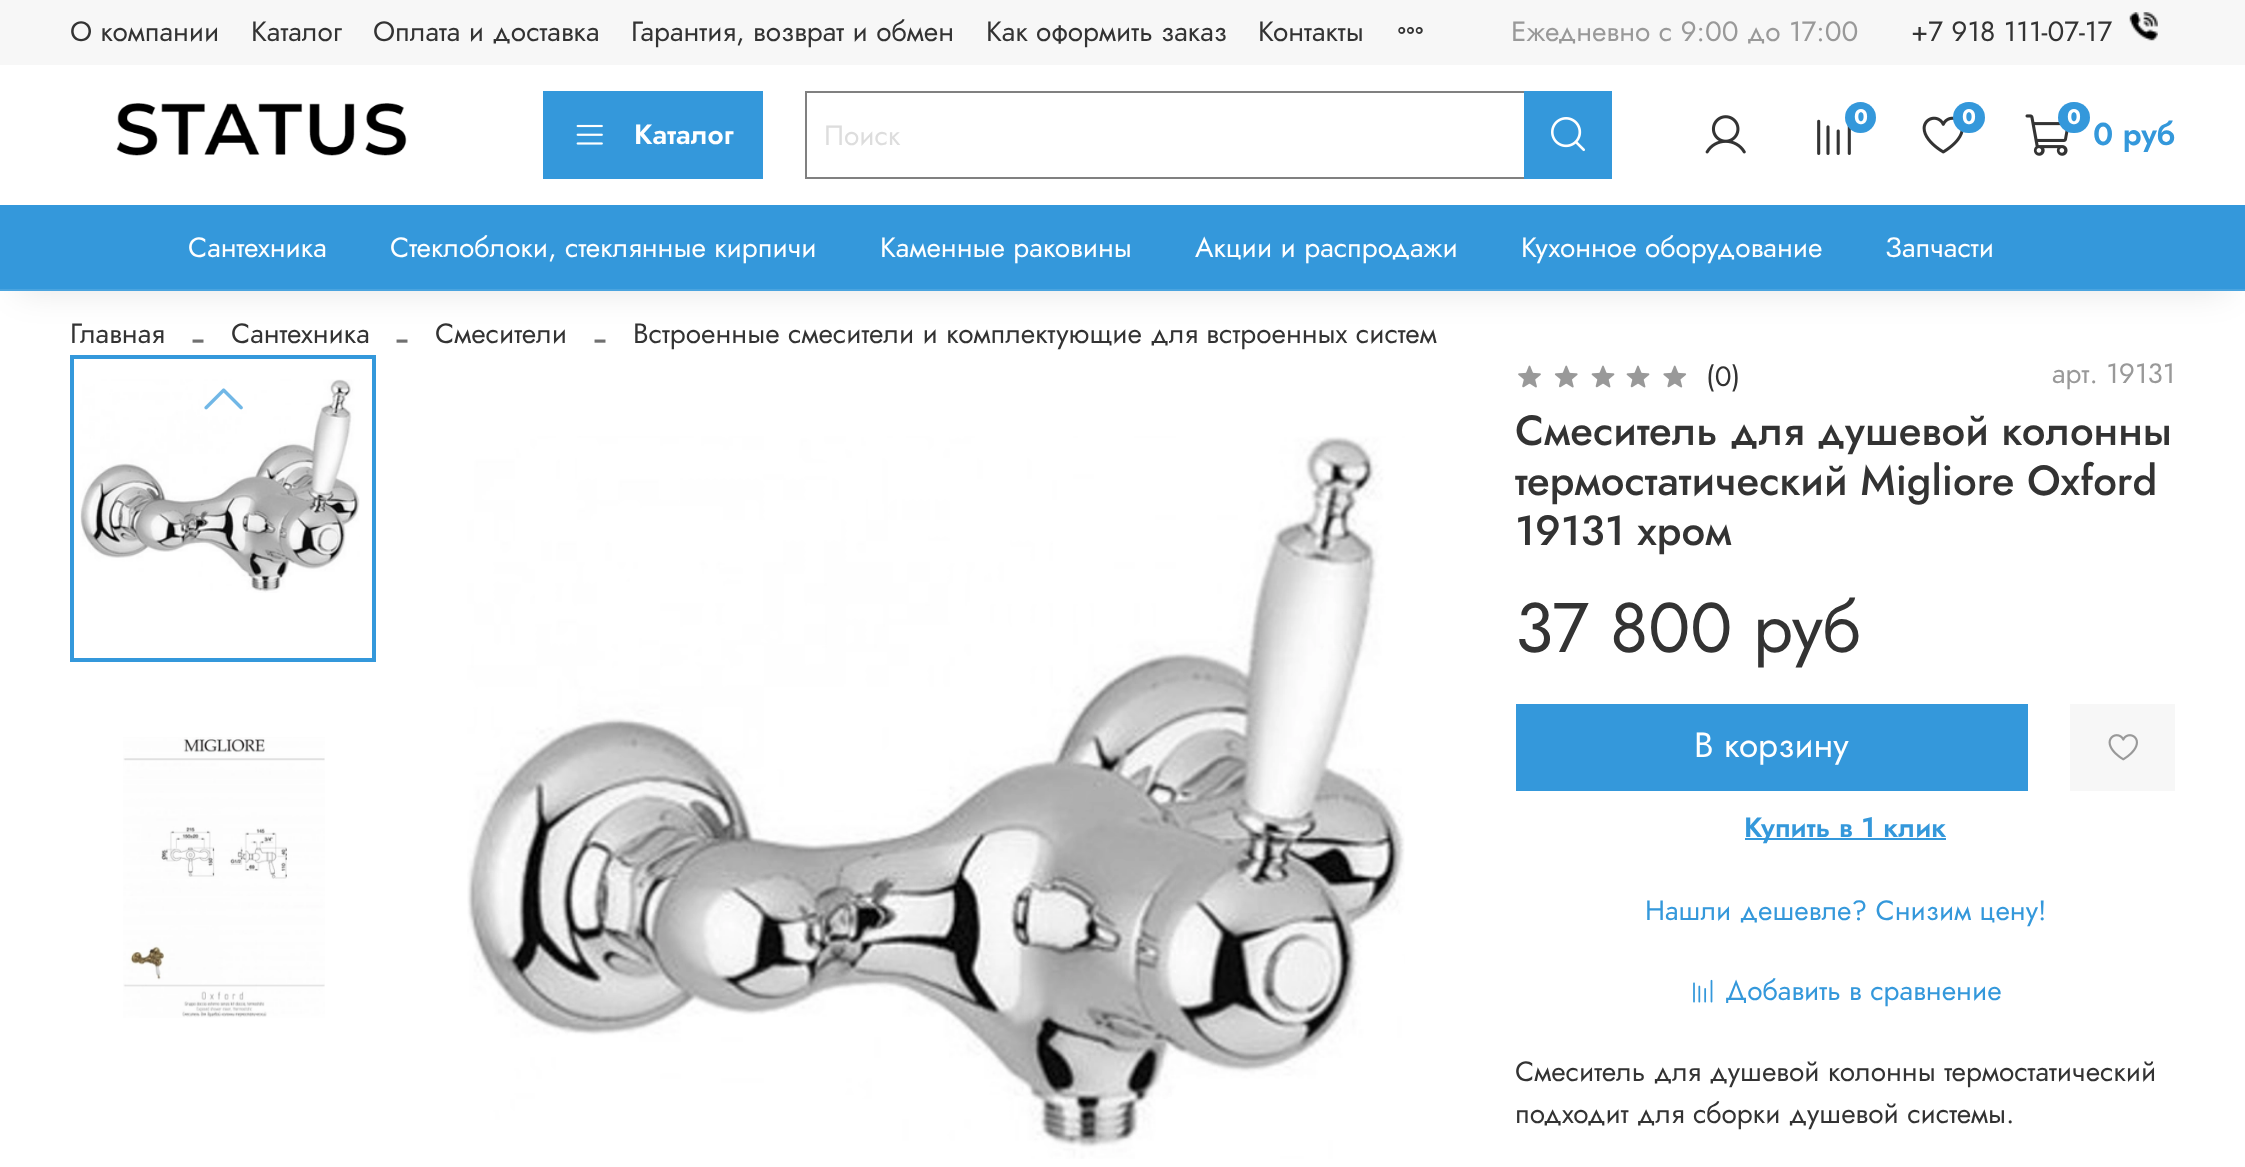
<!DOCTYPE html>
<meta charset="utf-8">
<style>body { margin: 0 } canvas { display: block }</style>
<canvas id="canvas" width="2245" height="1167"></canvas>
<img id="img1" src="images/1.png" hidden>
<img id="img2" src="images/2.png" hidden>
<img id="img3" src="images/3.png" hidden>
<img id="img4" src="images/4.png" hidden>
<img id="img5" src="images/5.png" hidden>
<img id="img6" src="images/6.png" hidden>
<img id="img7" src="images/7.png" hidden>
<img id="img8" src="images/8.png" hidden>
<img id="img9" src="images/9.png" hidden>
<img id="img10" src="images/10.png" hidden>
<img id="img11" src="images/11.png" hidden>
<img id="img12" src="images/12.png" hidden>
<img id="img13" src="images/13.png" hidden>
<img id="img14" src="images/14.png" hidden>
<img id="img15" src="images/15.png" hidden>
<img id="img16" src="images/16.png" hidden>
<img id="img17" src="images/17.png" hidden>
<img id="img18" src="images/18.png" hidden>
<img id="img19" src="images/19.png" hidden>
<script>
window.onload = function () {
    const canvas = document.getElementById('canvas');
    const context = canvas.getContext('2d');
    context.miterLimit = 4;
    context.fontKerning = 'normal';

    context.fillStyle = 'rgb(255, 255, 255)';
    context.fillRect(0, 0, 2245, 1167);
    context.fillStyle = 'rgb(247, 247, 247)';
    context.fillRect(0, 0, 2245, 65);
    context.drawImage(document.getElementById('img1'), 1398, 27, 25, 7);
    context.drawImage(document.getElementById('img2'), 2129, 12, 29, 29);
    context.drawImage(document.getElementById('img3'), 116, 103, 291, 53);
    context.fillStyle = 'rgb(52, 152, 219)';
    context.fillRect(543, 91, 220, 88);
    context.drawImage(document.getElementById('img4'), 576, 124, 27, 21);
    context.fillStyle = 'rgb(128, 128, 128)';
    context.fillRect(805, 91, 719, 2);
    context.fillRect(805, 177, 719, 2);
    context.fillRect(805, 91, 2, 88);
    context.fillStyle = 'rgb(52, 152, 219)';
    context.fillRect(1524, 91, 88, 88);
    context.drawImage(document.getElementById('img5'), 1551, 117, 34, 35);
    context.drawImage(document.getElementById('img6'), 1705, 115, 41, 39);
    context.drawImage(document.getElementById('img7'), 1817, 119, 34, 36);
    context.beginPath();
    context.arc(1860.5, 117.5, 15.5, 0, 2 * Math.PI);
    context.fill();
    context.drawImage(document.getElementById('img8'), 1922, 116, 42, 38);
    context.beginPath();
    context.roundRect(1953, 102, 32, 31, 15.5);
    context.fill();
    context.drawImage(document.getElementById('img9'), 2025, 114, 44, 42);
    context.beginPath();
    context.roundRect(2058, 102, 32, 31, 15.5);
    context.fill();
    context.fillStyle = 'rgba(0, 0, 0, 0.1)';
    context.filter = 'blur(17.5px)';
    context.beginPath();
    context.rect(18, 240, 2210, 51);
    context.fill();
    context.filter = 'none';
    context.fillStyle = 'rgb(52, 152, 219)';
    context.fillRect(0, 205, 2245, 84);
    context.fillStyle = 'rgb(74, 164, 223)';
    context.fillRect(0, 289, 2245, 2);
    context.drawImage(document.getElementById('img10'), 80, 379, 280, 214);
    context.strokeStyle = 'rgb(52, 152, 219)';
    context.lineWidth = 4;
    context.strokeRect(72, 357, 302, 303);
    context.drawImage(document.getElementById('img11'), 123, 737, 202, 281);
    context.drawImage(document.getElementById('img12'), 204, 388, 39, 22);
    context.drawImage(document.getElementById('img13'), 467, 436, 938, 723);
    context.drawImage(document.getElementById('img14'), 1518, 365, 23, 23);
    context.drawImage(document.getElementById('img15'), 1554, 365, 24, 23);
    context.drawImage(document.getElementById('img16'), 1591, 365, 24, 23);
    context.drawImage(document.getElementById('img16'), 1626, 365, 24, 23);
    context.drawImage(document.getElementById('img17'), 1663, 365, 24, 23);
    context.fillStyle = 'rgb(52, 152, 219)';
    context.fillRect(1516, 704, 512, 87);
    context.fillStyle = 'rgb(247, 247, 247)';
    context.fillRect(2070, 704, 105, 87);
    context.drawImage(document.getElementById('img18'), 2108, 734, 30, 27);
    context.fillStyle = 'rgb(52, 152, 219)';
    context.fillRect(1745, 838, 201, 2);
    context.drawImage(document.getElementById('img19'), 1693, 979, 20, 24);
    context.font = '28px Jost';
    context.fillStyle = 'rgb(51, 51, 51)';
    context.fillText('О компании', 70, 41);
    context.fillText('Каталог', 251, 41);
    context.fillText('Оплата и доставка', 373, 41);
    context.fillText('Гарантия, возврат и обмен', 631, 41);
    context.fillText('Как оформить заказ', 986, 41);
    context.fillText('Контакты', 1258, 41);
    context.fillStyle = 'rgb(153, 153, 153)';
    context.fillText('Ежедневно с 9:00 до 17:00', 1511, 41);
    context.fillStyle = 'rgb(51, 51, 51)';
    context.fillText('+7 918 111-07-17', 1911, 41);
    context.font = '600 28px Jost';
    context.fillStyle = 'rgb(255, 255, 255)';
    context.fillText('Каталог', 634, 144);
    context.font = '28px Jost';
    context.fillStyle = 'rgb(221, 221, 221)';
    context.fillText('Поиск', 824, 145);
    context.font = 'bold 21px Jost';
    context.fillStyle = 'rgb(255, 255, 255)';
    context.fillText('0', 1854, 124);
    context.fillText('0', 1962, 124);
    context.fillText('0', 2067, 124);
    context.font = '600 31.5px Jost';
    context.fillStyle = 'rgb(52, 152, 219)';
    context.fillText('0 руб', 2093, 145);
    context.font = '28px Jost';
    context.fillStyle = 'rgb(255, 255, 255)';
    context.fillText('Сантехника', 188, 257);
    context.fillText('Стеклоблоки, стеклянные кирпичи', 390, 257);
    context.fillText('Каменные раковины', 880, 257);
    context.fillText('Акции и распродажи', 1195, 257);
    context.fillText('Кухонное оборудование', 1521, 257);
    context.fillText('Запчасти', 1885, 257);
    context.fillStyle = 'rgb(51, 51, 51)';
    context.fillText('Главная', 70, 343);
    context.font = '42px Liberation Serif';
    context.fillStyle = 'rgb(112, 112, 112)';
    context.fillText('-', 191, 351);
    context.font = '28px Jost';
    context.fillStyle = 'rgb(51, 51, 51)';
    context.fillText('Сантехника', 231, 343);
    context.font = '42px Liberation Serif';
    context.fillStyle = 'rgb(112, 112, 112)';
    context.fillText('-', 395, 351);
    context.font = '28px Jost';
    context.fillStyle = 'rgb(51, 51, 51)';
    context.fillText('Смесители', 435, 343);
    context.font = '42px Liberation Serif';
    context.fillStyle = 'rgb(112, 112, 112)';
    context.fillText('-', 593, 351);
    context.font = '28px Jost';
    context.fillStyle = 'rgb(51, 51, 51)';
    context.fillText('Встроенные смесители и комплектующие для встроенных систем', 633, 343);
    context.fillText('(0)', 1706, 386);
    context.fillStyle = 'rgb(153, 153, 153)';
    context.fillText('арт. 19131', 2052, 383);
    context.font = '500 42px Jost';
    context.fillStyle = 'rgb(51, 51, 51)';
    context.fillText('Смеситель для душевой колонны', 1515, 445);
    context.fillText('термостатический Migliore Oxford', 1515, 495);
    context.fillText('19131 хром', 1515, 545);
    context.font = '70px Jost';
    context.fillText('37 800 руб', 1515, 652);
    context.font = '35px Jost';
    context.fillStyle = 'rgb(255, 255, 255)';
    context.fillText('В корзину', 1694, 757);
    context.font = '600 28px Jost';
    context.fillStyle = 'rgb(52, 152, 219)';
    context.fillText('Купить в 1 клик', 1744, 837);
    context.font = '28px Jost';
    context.fillText('Нашли дешевле? Снизим цену!', 1645, 920);
    context.fillText('Добавить в сравнение', 1725, 1000);
    context.fillStyle = 'rgb(51, 51, 51)';
    context.fillText('Смеситель для душевой колонны термостатический', 1515, 1081);
    context.fillText('подходит для сборки душевой системы.', 1515, 1123);
};
</script>
